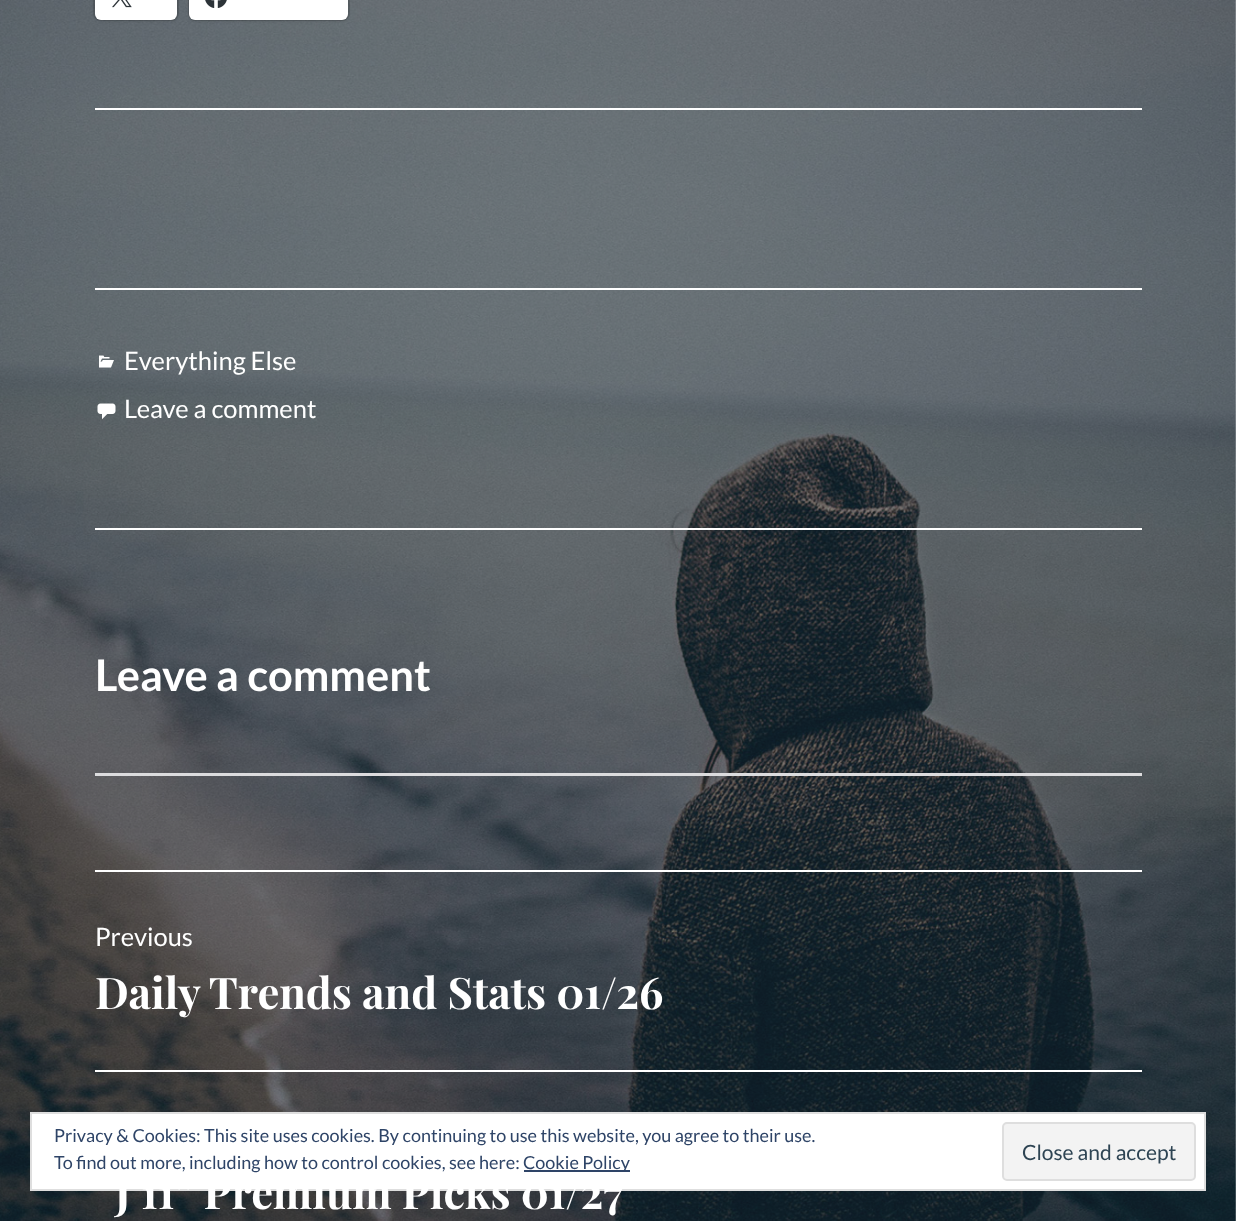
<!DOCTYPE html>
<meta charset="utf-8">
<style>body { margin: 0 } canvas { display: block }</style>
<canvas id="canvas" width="1236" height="1221"></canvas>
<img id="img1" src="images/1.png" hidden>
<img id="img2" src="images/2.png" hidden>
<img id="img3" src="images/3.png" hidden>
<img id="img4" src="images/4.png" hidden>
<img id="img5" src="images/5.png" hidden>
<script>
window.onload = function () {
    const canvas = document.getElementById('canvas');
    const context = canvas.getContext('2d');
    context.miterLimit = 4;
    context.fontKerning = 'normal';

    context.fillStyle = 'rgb(255, 255, 255)';
    context.fillRect(0, 0, 1236, 1221);
    context.drawImage(document.getElementById('img1'), 0, 0, 1236, 1221);
    context.beginPath();
    context.roundRect(94, -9, 84, 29, 7);
    context.strokeStyle = 'rgba(0, 0, 0, 0.12)';
    context.lineWidth = 2;
    context.stroke();
    context.fillStyle = 'rgba(0, 0, 0, 0.12)';
    context.filter = 'blur(1.5px)';
    context.beginPath();
    context.roundRect(95, -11, 82, 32, 6);
    context.fill();
    context.filter = 'none';
    context.fillStyle = 'rgb(255, 255, 255)';
    context.beginPath();
    context.roundRect(95, -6, 82, 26, 6);
    context.fill();
    context.drawImage(document.getElementById('img2'), 112, 0, 20, 8);
    context.beginPath();
    context.roundRect(189, -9, 160, 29, 7);
    context.stroke();
    context.fillStyle = 'rgba(0, 0, 0, 0.12)';
    context.filter = 'blur(1.5px)';
    context.beginPath();
    context.roundRect(189, -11, 159, 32, 6);
    context.fill();
    context.filter = 'none';
    context.fillStyle = 'rgb(255, 255, 255)';
    context.beginPath();
    context.roundRect(189, -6, 159, 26, 6);
    context.fill();
    context.drawImage(document.getElementById('img3'), 205, 0, 22, 8);
    context.fillRect(95, 108, 1047, 2);
    context.fillRect(95, 288, 1047, 2);
    context.drawImage(document.getElementById('img4'), 99, 355, 15, 13);
    context.drawImage(document.getElementById('img5'), 97, 403, 19, 17);
    context.fillRect(95, 528, 1047, 2);
    context.fillStyle = 'rgb(220, 220, 222)';
    context.fillRect(95, 773, 1047, 3);
    context.fillStyle = 'rgb(255, 255, 255)';
    context.fillRect(95, 870, 1047, 2);
    context.fillRect(95, 1070, 1047, 2);
    context.beginPath();
    context.rect(31, 1113, 1174, 77);
    context.fill();
    context.strokeStyle = 'rgb(222, 222, 222)';
    context.stroke();
    context.fillStyle = 'rgb(46, 68, 103)';
    context.fillRect(524, 1170, 106, 2);
    context.fillStyle = 'rgb(243, 243, 243)';
    context.beginPath();
    context.roundRect(1003, 1123, 192, 57, 4);
    context.fill();
    context.stroke();
    context.font = '25.5px Lato';
    context.fillStyle = 'rgb(255, 255, 255)';
    context.fillText('Everything Else', 124, 370);
    context.fillText('Leave a comment', 124, 418);
    context.font = 'bold 43.5px Lato';
    context.fillText('Leave a comment', 95, 691);
    context.font = '25.5px Lato';
    context.fillText('Previous', 95, 946);
    context.font = 'bold 43.5px Playfair Display';
    context.fillText('Daily Trends and Stats 01/26', 95, 1009);
    context.fillText('J 11” Premium Picks 01/27', 115, 1209);
    context.font = '18px Lato';
    context.fillStyle = 'rgb(46, 68, 103)';
    context.fillText('Privacy & Cookies: This site uses cookies. By continuing to use this website, you agree to their use.', 54, 1142);
    context.fillText('To find out more, including how to control cookies, see here:', 54, 1169);
    context.fillText('Cookie Policy', 523, 1169);
    context.font = '21px Lato';
    context.fillStyle = 'rgb(46, 68, 83)';
    context.fillText('Close and accept', 1022, 1160);
};
</script>
